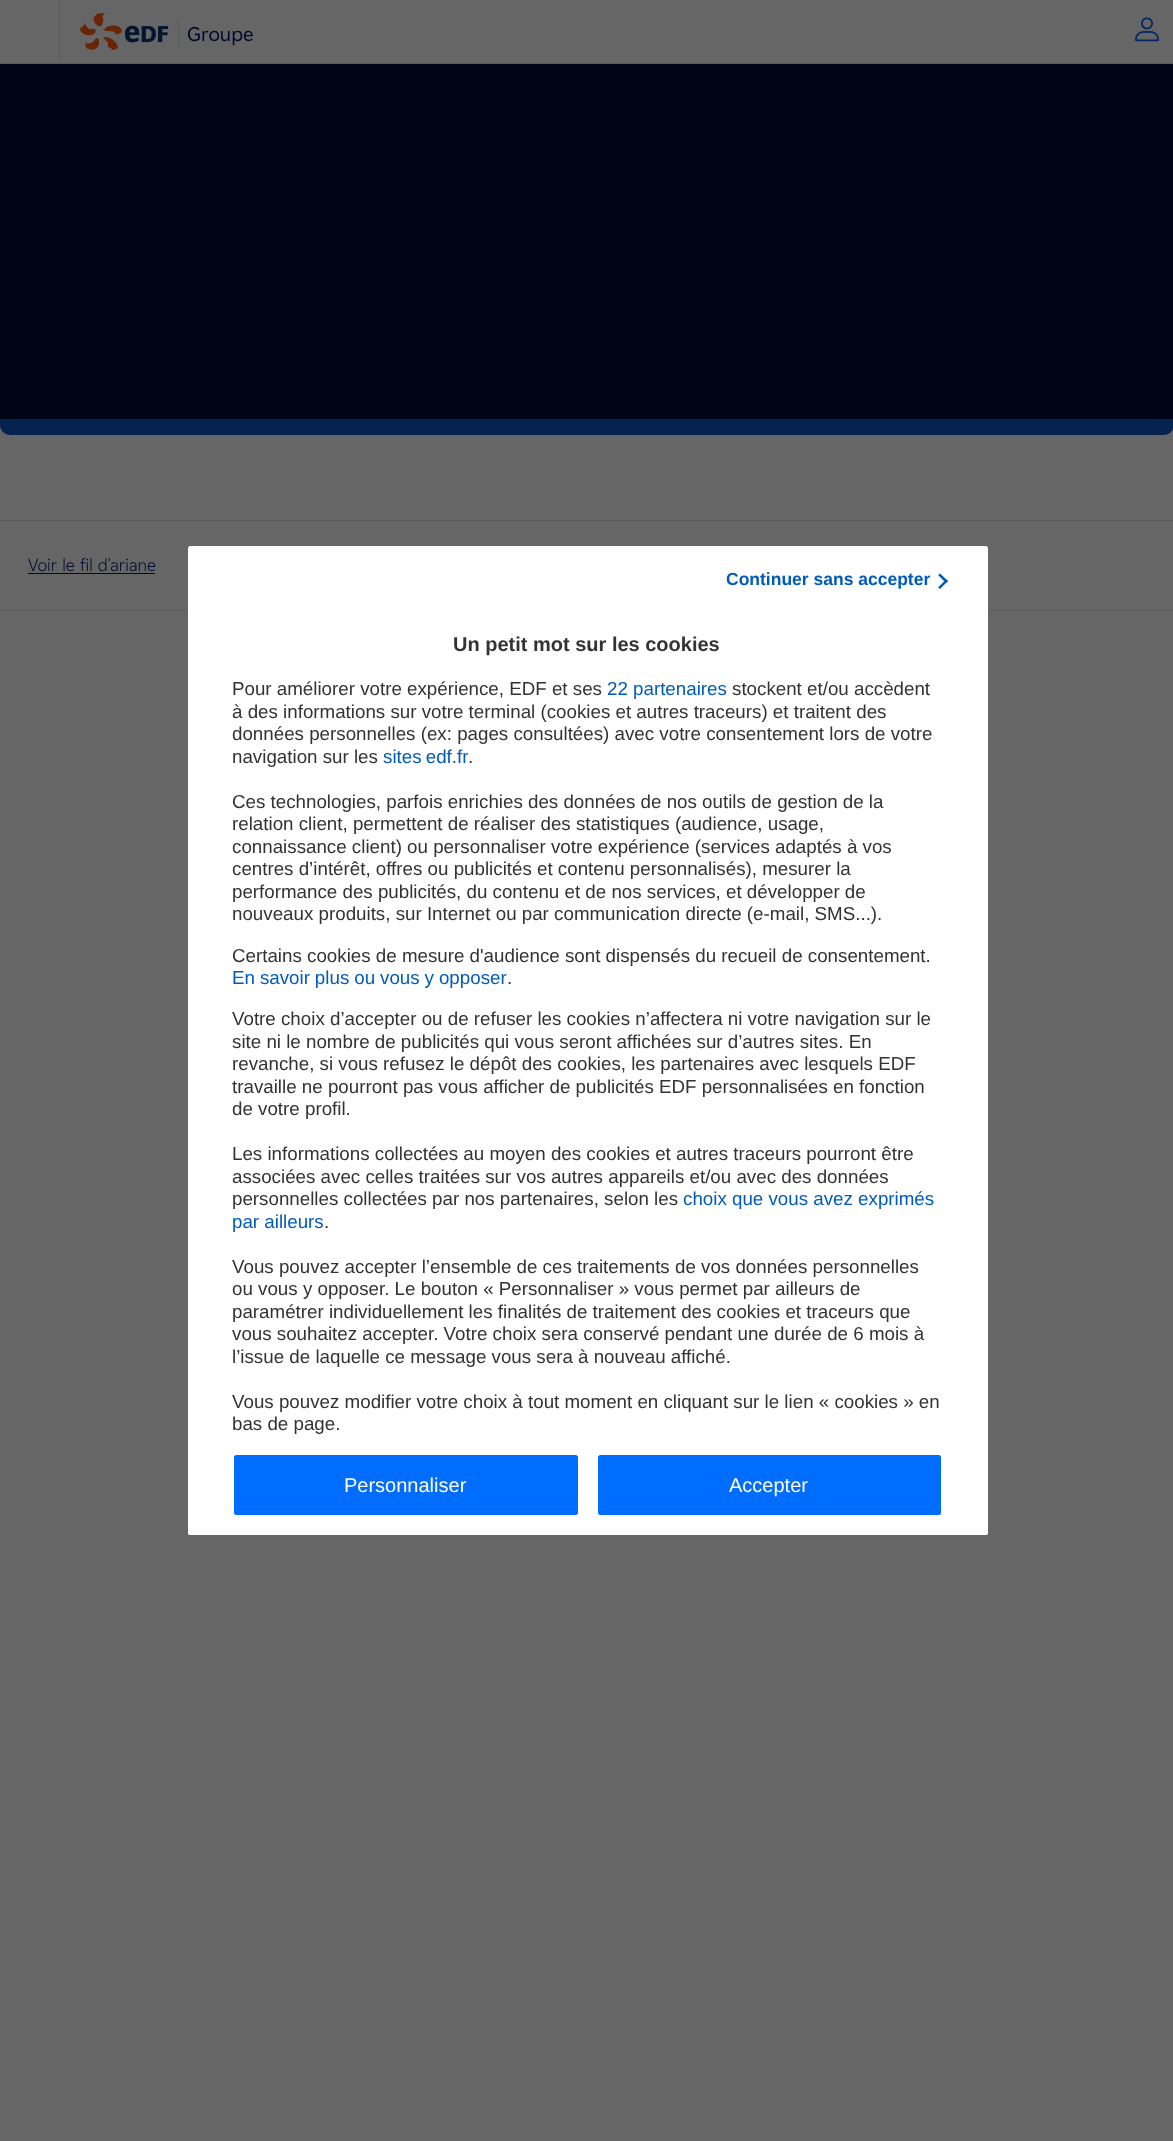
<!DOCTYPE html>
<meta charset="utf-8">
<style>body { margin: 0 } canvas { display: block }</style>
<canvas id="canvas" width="1173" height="2141"></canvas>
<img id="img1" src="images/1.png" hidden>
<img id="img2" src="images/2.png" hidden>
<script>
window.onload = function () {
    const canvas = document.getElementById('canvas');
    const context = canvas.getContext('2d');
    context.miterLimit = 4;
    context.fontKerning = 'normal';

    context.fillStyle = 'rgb(102, 102, 102)';
    context.fillRect(0, 0, 1173, 2141);
    context.fillStyle = 'rgb(90, 90, 90)';
    context.fillRect(0, 63, 1173, 1);
    context.fillRect(59, 0, 1, 60);
    context.drawImage(document.getElementById('img1'), 80, 13, 89, 37);
    context.fillRect(178, 20, 1, 30);
    context.drawImage(document.getElementById('img2'), 1135, 17, 24, 25);
    context.fillStyle = 'rgb(0, 5, 22)';
    context.fillRect(0, 64, 1173, 355);
    context.fillStyle = 'rgb(6, 35, 80)';
    context.beginPath();
    context.moveTo(0, 419);
    context.lineTo(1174, 419);
    context.lineTo(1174, 425);
    context.bezierCurveTo(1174, 430.5, 1169.5, 435, 1164, 435);
    context.lineTo(10, 435);
    context.bezierCurveTo(4.5, 435, 0, 430.5, 0, 425);
    context.closePath();
    context.fill();
    context.fillStyle = 'rgb(90, 90, 90)';
    context.fillRect(0, 520, 1173, 1);
    context.fillStyle = 'rgb(0, 10, 45)';
    context.fillRect(28, 573, 127, 1);
    context.fillStyle = 'rgb(90, 90, 90)';
    context.fillRect(0, 610, 1173, 1);
    context.fillStyle = 'rgb(255, 255, 255)';
    context.beginPath();
    context.roundRect(188, 546, 800, 989, 2.5);
    context.fill();
    context.fillStyle = 'rgb(0, 91, 187)';
    context.beginPath();
    context.moveTo(940, 573.5);
    context.lineTo(948, 581);
    context.lineTo(946, 583);
    context.lineTo(938, 575);
    context.closePath();
    context.fill();
    context.beginPath();
    context.moveTo(946, 579.5);
    context.lineTo(948, 581);
    context.lineTo(940, 589);
    context.lineTo(938, 587.5);
    context.closePath();
    context.fill();
    context.fillStyle = 'rgb(255, 255, 255)';
    context.beginPath();
    context.roundRect(188, 1435, 800, 100, 2.5);
    context.fill();
    context.fillStyle = 'rgb(0, 109, 255)';
    context.beginPath();
    context.roundRect(234, 1455, 344, 60, 2.5);
    context.fill();
    context.beginPath();
    context.roundRect(598, 1455, 343, 60, 2.5);
    context.fill();
    context.font = '20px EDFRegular';
    context.fillStyle = 'rgb(0, 10, 45)';
    context.fillText('Groupe', 187, 41);
    context.font = '300 17.5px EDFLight';
    context.fillText('Voir le fil d\'ariane', 28, 571);
    context.font = 'bold 17.5px Liberation Sans';
    context.fillStyle = 'rgb(0, 91, 187)';
    context.fillText('Continuer sans accepter', 726, 585);
    context.font = 'bold 20px Liberation Sans';
    context.fillStyle = 'rgb(51, 51, 51)';
    context.fillText('Un petit mot sur les cookies', 453, 651);
    context.font = '18.75px Liberation Sans';
    context.fillText('Pour améliorer votre expérience, EDF et ses', 232, 695);
    context.fillStyle = 'rgb(0, 91, 187)';
    context.fillText('22 partenaires', 607, 695);
    context.fillStyle = 'rgb(51, 51, 51)';
    context.fillText('stockent et/ou accèdent', 732, 695);
    context.fillText('à des informations sur votre terminal (cookies et autres traceurs) et traitent des', 232, 718);
    context.fillText('données personnelles (ex: pages consultées) avec votre consentement lors de votre', 232, 740);
    context.fillText('navigation sur les', 232, 763);
    context.wordSpacing = '-1px';
    context.fillStyle = 'rgb(0, 91, 187)';
    context.fillText('sites edf.fr', 383, 763);
    context.wordSpacing = '0px';
    context.fillStyle = 'rgb(51, 51, 51)';
    context.fillText('.', 468, 763);
    context.fillText('Ces technologies, parfois enrichies des données de nos outils de gestion de la', 232, 808);
    context.fillText('relation client, permettent de réaliser des statistiques (audience, usage,', 232, 830);
    context.fillText('connaissance client) ou personnaliser votre expérience (services adaptés à vos', 232, 853);
    context.fillText('centres d’intérêt, offres ou publicités et contenu personnalisés), mesurer la', 232, 875);
    context.fillText('performance des publicités, du contenu et de nos services, et développer de', 232, 898);
    context.fillText('nouveaux produits, sur Internet ou par communication directe (e-mail, SMS...).', 232, 920);
    context.fillText('Certains cookies de mesure d\'audience sont dispensés du recueil de consentement.', 232, 962);
    context.wordSpacing = '-0.25px';
    context.fillStyle = 'rgb(0, 91, 187)';
    context.fillText('En savoir plus ou vous y opposer', 232, 984);
    context.wordSpacing = '0px';
    context.fillStyle = 'rgb(51, 51, 51)';
    context.fillText('.', 507, 984);
    context.fillText('Votre choix d’accepter ou de refuser les cookies n’affectera ni votre navigation sur le', 232, 1025);
    context.fillText('site ni le nombre de publicités qui vous seront affichées sur d’autres sites. En', 232, 1048);
    context.fillText('revanche, si vous refusez le dépôt des cookies, les partenaires avec lesquels EDF', 232, 1070);
    context.fillText('travaille ne pourront pas vous afficher de publicités EDF personnalisées en fonction', 232, 1093);
    context.fillText('de votre profil.', 232, 1115);
    context.fillText('Les informations collectées au moyen des cookies et autres traceurs pourront être', 232, 1160);
    context.fillText('associées avec celles traitées sur vos autres appareils et/ou avec des données', 232, 1183);
    context.fillText('personnelles collectées par nos partenaires, selon les', 232, 1205);
    context.fillStyle = 'rgb(0, 91, 187)';
    context.fillText('choix que vous avez exprimés', 683, 1205);
    context.fillText('par ailleurs', 232, 1228);
    context.fillStyle = 'rgb(51, 51, 51)';
    context.fillText('.', 324, 1228);
    context.fillText('Vous pouvez accepter l’ensemble de ces traitements de vos données personnelles', 232, 1273);
    context.fillText('ou vous y opposer. Le bouton « Personnaliser » vous permet par ailleurs de', 232, 1295);
    context.fillText('paramétrer individuellement les finalités de traitement des cookies et traceurs que', 232, 1318);
    context.fillText('vous souhaitez accepter. Votre choix sera conservé pendant une durée de 6 mois à', 232, 1340);
    context.fillText('l’issue de laquelle ce message vous sera à nouveau affiché.', 232, 1363);
    context.fillText('Vous pouvez modifier votre choix à tout moment en cliquant sur le lien « cookies » en', 232, 1408);
    context.fillText('bas de page.', 232, 1430);
    context.font = '20px Liberation Sans';
    context.fillStyle = 'rgb(255, 255, 255)';
    context.fillText('Personnaliser', 344, 1492);
    context.fillText('Accepter', 729, 1492);
};
</script>
